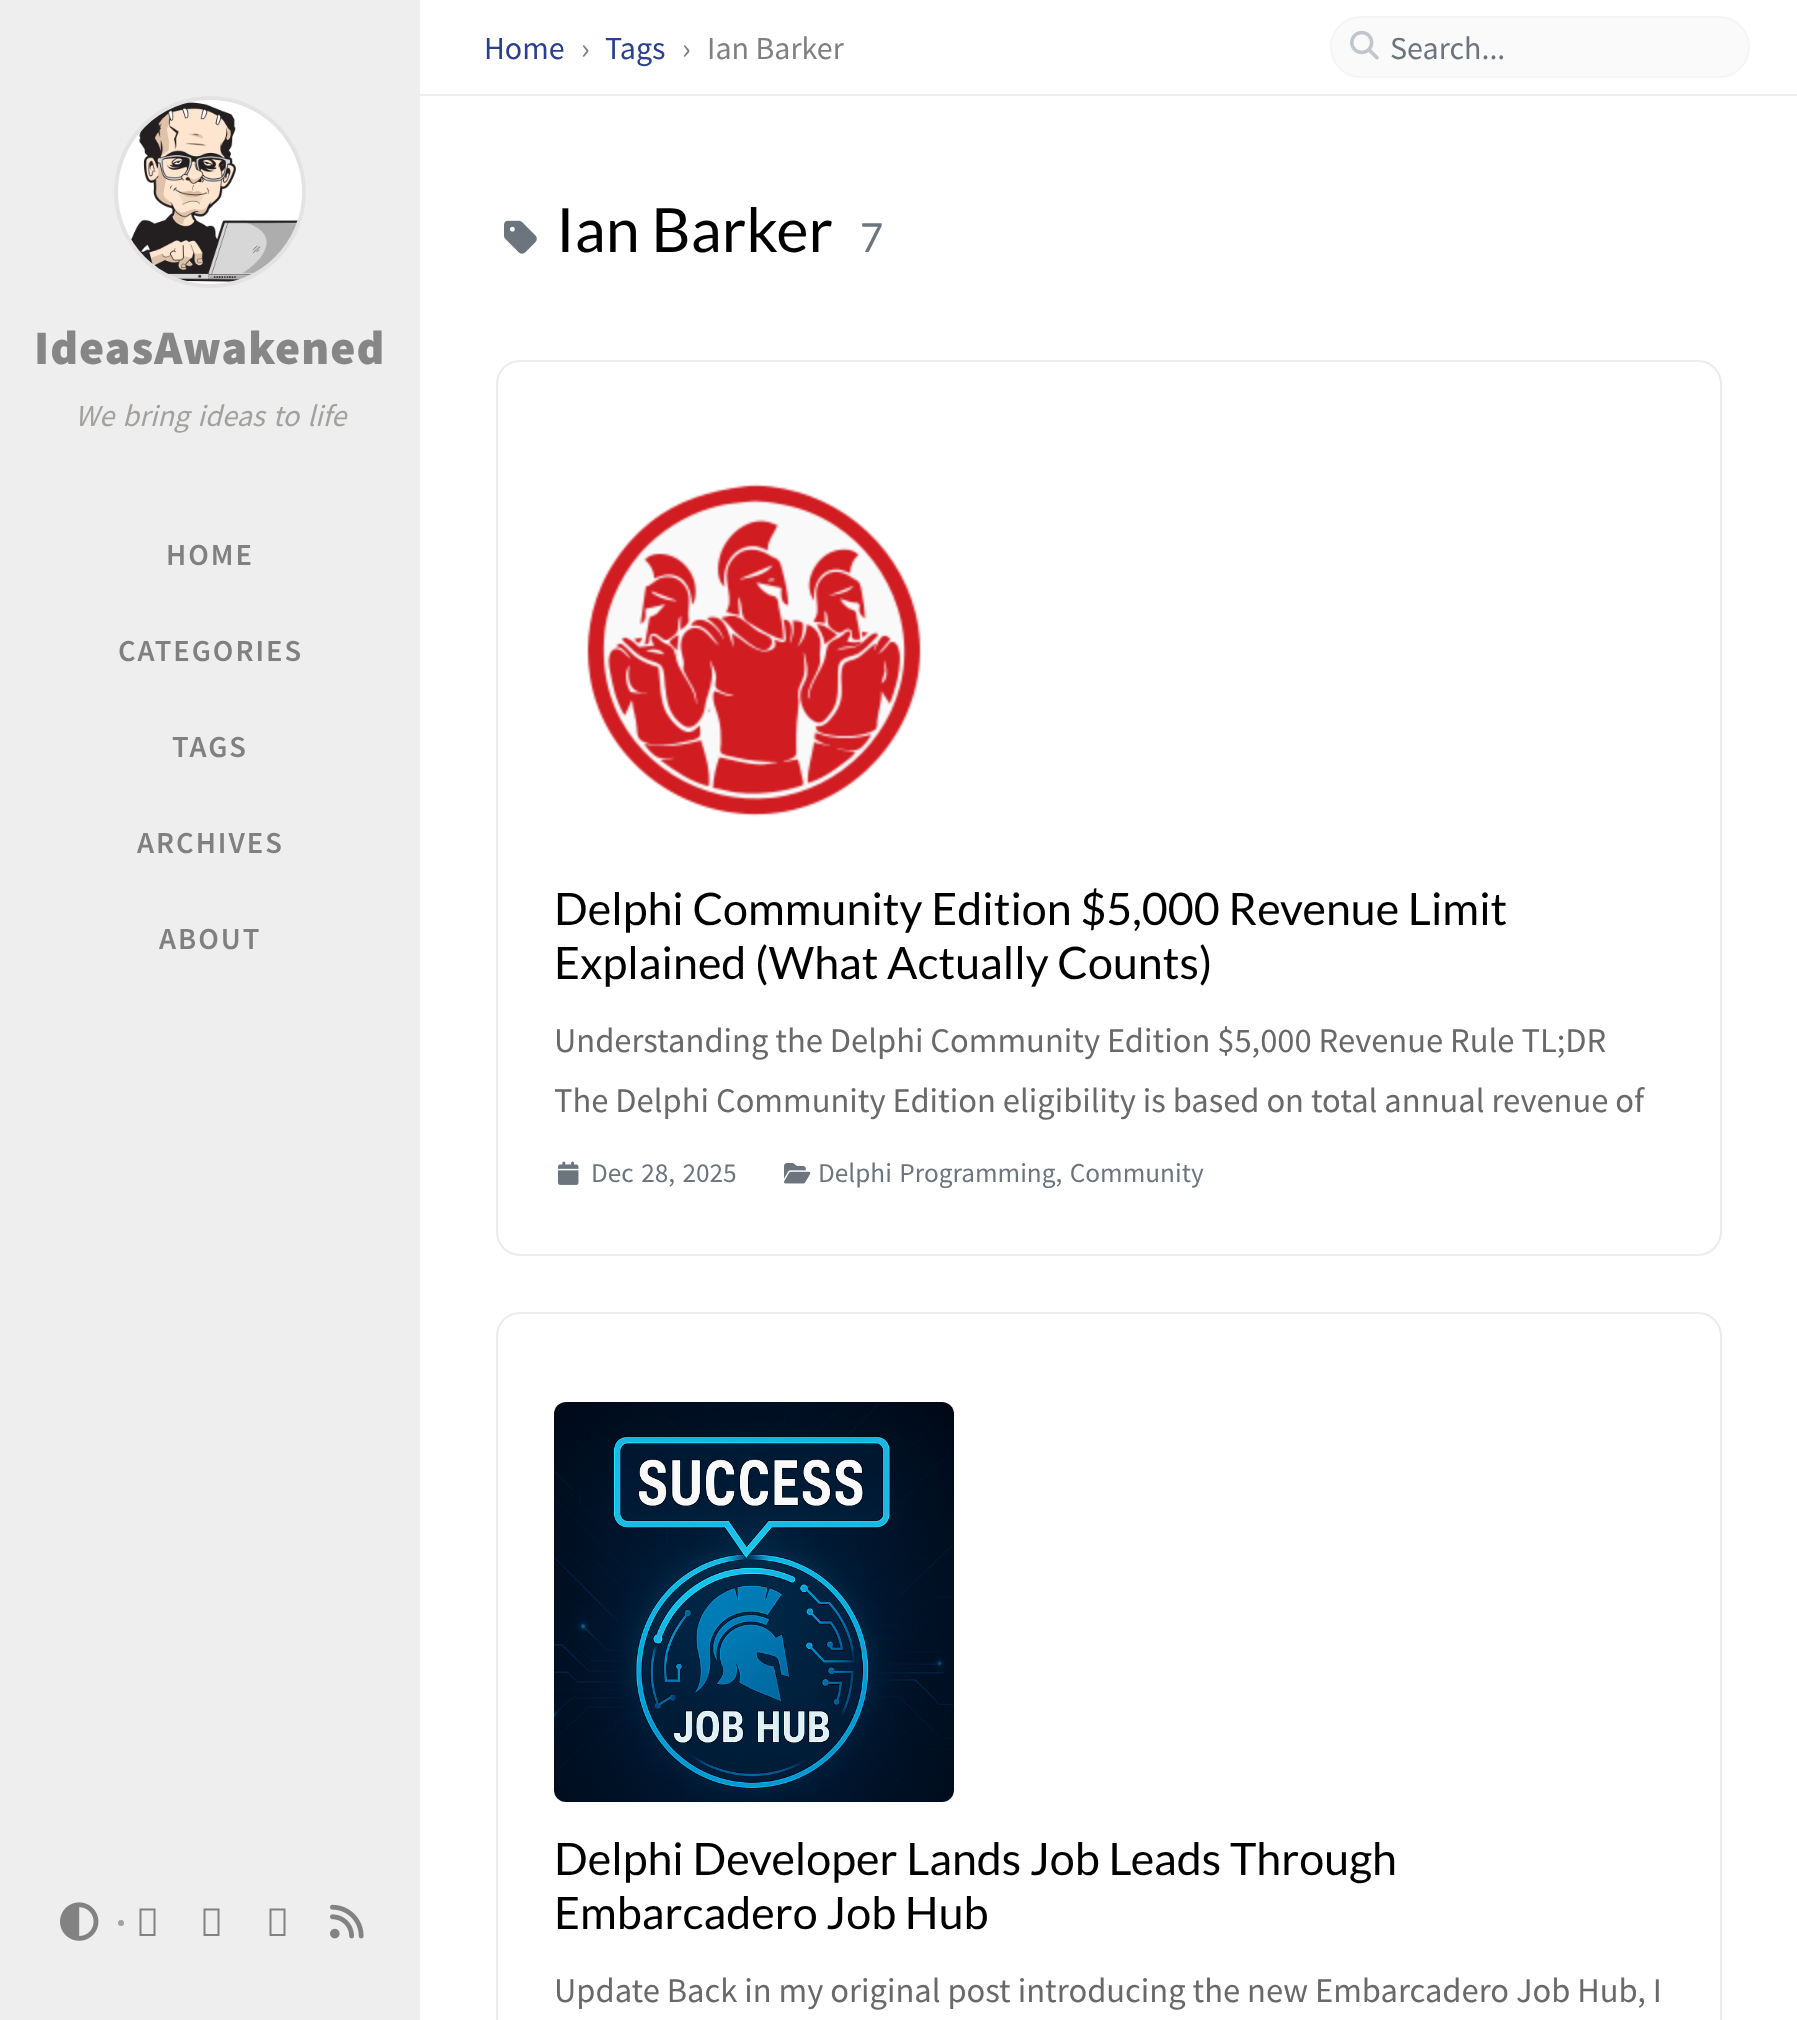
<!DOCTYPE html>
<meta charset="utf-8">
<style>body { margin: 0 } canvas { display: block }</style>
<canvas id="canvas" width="1797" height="2020"></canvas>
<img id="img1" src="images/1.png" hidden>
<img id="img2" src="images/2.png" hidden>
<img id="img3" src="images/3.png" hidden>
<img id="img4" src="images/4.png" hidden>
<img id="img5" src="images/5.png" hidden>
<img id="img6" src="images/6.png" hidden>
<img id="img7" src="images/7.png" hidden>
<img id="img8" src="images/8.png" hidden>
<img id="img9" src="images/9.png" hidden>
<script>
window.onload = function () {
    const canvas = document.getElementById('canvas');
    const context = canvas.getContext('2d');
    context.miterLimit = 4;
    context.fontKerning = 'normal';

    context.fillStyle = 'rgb(255, 255, 255)';
    context.fillRect(0, 0, 1797, 2020);
    context.fillStyle = 'rgb(237, 237, 237)';
    context.fillRect(420, 94, 1377, 2);
    context.fillStyle = 'rgb(250, 250, 250)';
    context.beginPath();
    context.roundRect(1331, 17, 418, 60, 30);
    context.fill();
    context.strokeStyle = 'rgb(245, 245, 245)';
    context.lineWidth = 2;
    context.stroke();
    context.drawImage(document.getElementById('img1'), 1350, 30, 29, 30);
    context.fillStyle = 'rgb(238, 238, 238)';
    context.fillRect(0, 0, 420, 2020);
    context.beginPath();
    context.arc(210, 192, 94, 0, 2 * Math.PI);
    context.strokeStyle = 'rgb(227, 227, 227)';
    context.lineWidth = 4;
    context.stroke();
    context.drawImage(document.getElementById('img2'), 118, 100, 184, 184);
    context.drawImage(document.getElementById('img3'), 60, 1902, 39, 39);
    context.fillStyle = 'rgb(162, 161, 159)';
    context.beginPath();
    context.arc(121, 1923, 3, 0, 2 * Math.PI);
    context.fill();
    context.fillStyle = 'rgb(129, 129, 129)';
    context.beginPath();
    context.moveTo(139.5, 1936);
    context.lineTo(139.5, 1908.5);
    context.lineTo(155.5, 1908.5);
    context.lineTo(155.5, 1936);
    context.closePath();
    context.moveTo(141.5, 1934);
    context.lineTo(153.5, 1934);
    context.lineTo(153.5, 1910.5);
    context.lineTo(141.5, 1910.5);
    context.closePath();
    context.fill();
    context.beginPath();
    context.moveTo(203.5, 1936);
    context.lineTo(203.5, 1908.5);
    context.lineTo(219.5, 1908.5);
    context.lineTo(219.5, 1936);
    context.closePath();
    context.moveTo(205.5, 1934);
    context.lineTo(217.5, 1934);
    context.lineTo(217.5, 1910.5);
    context.lineTo(205.5, 1910.5);
    context.closePath();
    context.fill();
    context.beginPath();
    context.moveTo(269.5, 1936);
    context.lineTo(269.5, 1908.5);
    context.lineTo(285.5, 1908.5);
    context.lineTo(285.5, 1936);
    context.closePath();
    context.moveTo(271.5, 1934);
    context.lineTo(283.5, 1934);
    context.lineTo(283.5, 1910.5);
    context.lineTo(271.5, 1910.5);
    context.closePath();
    context.fill();
    context.drawImage(document.getElementById('img4'), 330, 1904, 34, 35);
    context.drawImage(document.getElementById('img5'), 504, 220, 33, 34);
    context.beginPath();
    context.roundRect(497, 361, 1224, 894, 23);
    context.strokeStyle = 'rgb(236, 236, 236)';
    context.lineWidth = 2;
    context.stroke();
    context.drawImage(document.getElementById('img6'), 587, 483, 334, 334);
    context.drawImage(document.getElementById('img7'), 558, 1161, 21, 24);
    context.drawImage(document.getElementById('img8'), 784, 1163, 27, 21);
    context.beginPath();
    context.roundRect(497, 1313, 1224, 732, 23);
    context.stroke();
    context.drawImage(document.getElementById('img9'), 554, 1402, 400, 400);
    context.font = '32px Source Sans Pro';
    context.fillStyle = 'rgb(42, 64, 142)';
    context.fillText('Home', 484, 59);
    context.fillStyle = 'rgb(128, 128, 128)';
    context.fillText('›', 581, 59);
    context.fillStyle = 'rgb(42, 64, 142)';
    context.fillText('Tags', 605, 59);
    context.fillStyle = 'rgb(128, 128, 128)';
    context.fillText('›', 682, 59);
    context.fillText('Ian Barker', 707, 59);
    context.fillStyle = 'rgb(108, 117, 125)';
    context.fillText('Search...', 1390, 59);
    context.letterSpacing = '1px';
    context.font = '900 48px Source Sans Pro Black';
    context.fillStyle = 'rgb(135, 134, 134)';
    context.fillText('IdeasAwakened', 34, 364);
    context.letterSpacing = '0px';
    context.wordSpacing = '2px';
    context.font = 'italic 30.5px Source Sans Pro';
    context.fillStyle = 'rgb(162, 161, 159)';
    context.fillText('We bring ideas to life', 75, 426);
    context.letterSpacing = '2px';
    context.wordSpacing = '0px';
    context.font = '600 30.5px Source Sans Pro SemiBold';
    context.fillStyle = 'rgb(128, 128, 128)';
    context.fillText('HOME', 166, 565);
    context.fillText('CATEGORIES', 118, 661);
    context.fillText('TAGS', 172, 757);
    context.fillText('ARCHIVES', 137, 853);
    context.fillText('ABOUT', 159, 949);
    context.letterSpacing = '0px';
    context.font = '61px Lato';
    context.fillStyle = 'rgb(0, 0, 0)';
    context.fillText('Ian Barker', 556, 252);
    context.font = '40px Lato';
    context.fillStyle = 'rgb(108, 117, 125)';
    context.fillText('7', 860, 252);
    context.font = '44.8px Lato';
    context.fillStyle = 'rgb(0, 0, 0)';
    context.fillText('Delphi Community Edition $5,000 Revenue Limit', 554, 925);
    context.fillText('Explained (What Actually Counts)', 554, 979);
    context.font = '34.55px Source Sans Pro';
    context.fillStyle = 'rgb(105, 105, 105)';
    context.fillText('Understanding the Delphi Community Edition $5,000 Revenue Rule TL;DR', 554, 1052);
    context.fillText('The Delphi Community Edition eligibility is based on total annual revenue of', 554, 1112);
    context.wordSpacing = '2px';
    context.font = '27.25px Source Sans Pro';
    context.fillStyle = 'rgb(108, 117, 125)';
    context.fillText('Dec 28, 2025', 591, 1182);
    context.fillText('Delphi Programming, Community', 818, 1182);
    context.wordSpacing = '0px';
    context.font = '44.8px Lato';
    context.fillStyle = 'rgb(0, 0, 0)';
    context.fillText('Delphi Developer Lands Job Leads Through', 554, 1875);
    context.fillText('Embarcadero Job Hub', 554, 1929);
    context.font = '34.55px Source Sans Pro';
    context.fillStyle = 'rgb(105, 105, 105)';
    context.fillText('Update Back in my original post introducing the new Embarcadero Job Hub, I', 554, 2002);
};
</script>
